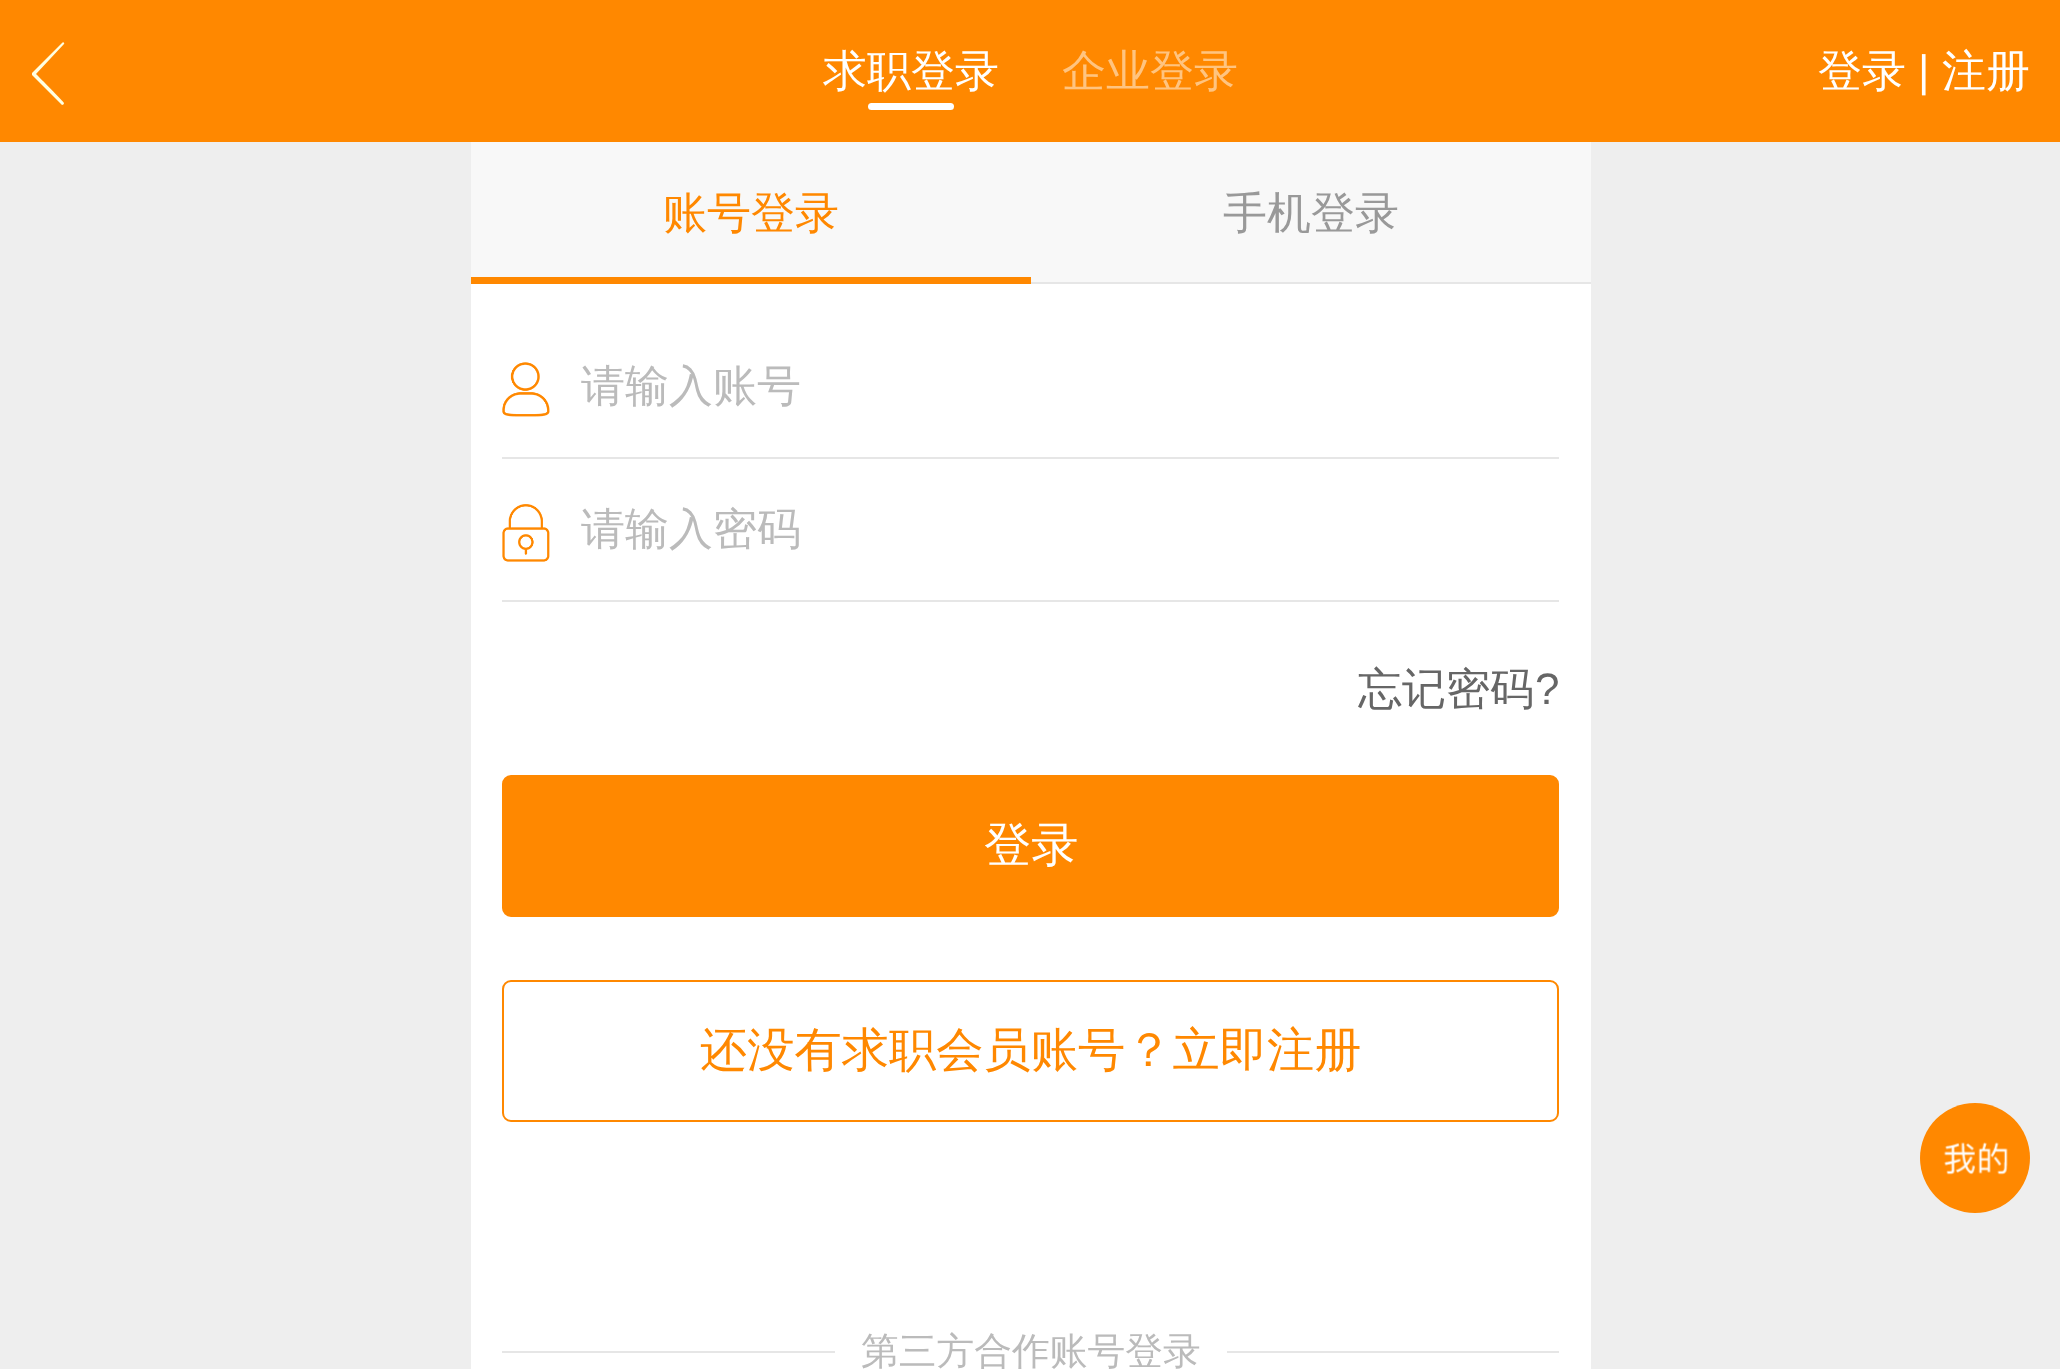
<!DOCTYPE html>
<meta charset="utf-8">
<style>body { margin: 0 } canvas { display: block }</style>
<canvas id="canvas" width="2060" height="1369"></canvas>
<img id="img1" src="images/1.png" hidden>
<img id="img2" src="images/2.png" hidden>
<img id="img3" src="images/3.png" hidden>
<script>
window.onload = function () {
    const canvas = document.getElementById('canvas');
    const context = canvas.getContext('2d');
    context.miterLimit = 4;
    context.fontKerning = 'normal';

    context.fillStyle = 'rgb(238, 238, 238)';
    context.fillRect(0, 0, 2060, 1369);
    context.fillStyle = 'rgb(255, 136, 0)';
    context.fillRect(0, 0, 2060, 142);
    context.fillStyle = 'rgb(255, 255, 225)';
    context.beginPath();
    context.moveTo(32, 75);
    context.lineTo(62, 105);
    context.bezierCurveTo(63, 105, 64, 104, 64, 103);
    context.bezierCurveTo(64, 102, 39, 77, 36, 74);
    context.lineTo(64, 44);
    context.bezierCurveTo(65, 43, 63, 41, 62, 43);
    context.lineTo(32, 73);
    context.lineTo(32, 74);
    context.closePath();
    context.fill();
    context.fillStyle = 'rgb(255, 255, 255)';
    context.beginPath();
    context.roundRect(868, 103, 86, 7, 3.5);
    context.fill();
    context.fillStyle = 'rgb(248, 248, 248)';
    context.fillRect(471, 142, 1120, 140);
    context.fillStyle = 'rgb(255, 136, 0)';
    context.fillRect(471, 277, 560, 7);
    context.fillStyle = 'rgb(230, 230, 230)';
    context.fillRect(1031, 282, 560, 2);
    context.fillStyle = 'rgb(255, 255, 255)';
    context.fillRect(471, 284, 1120, 1085);
    context.fillStyle = 'rgb(230, 230, 230)';
    context.fillRect(502, 600, 1057, 2);
    context.fillRect(502, 457, 1057, 2);
    context.drawImage(document.getElementById('img1'), 502, 362, 48, 55);
    context.drawImage(document.getElementById('img2'), 502, 504, 48, 58);
    context.fillStyle = 'rgb(255, 136, 0)';
    context.beginPath();
    context.roundRect(503, 776, 1055, 140, 8);
    context.fill();
    context.strokeStyle = 'rgb(255, 136, 0)';
    context.lineWidth = 2;
    context.stroke();
    context.beginPath();
    context.roundRect(503, 981, 1055, 140, 8);
    context.stroke();
    context.fillStyle = 'rgb(230, 230, 230)';
    context.fillRect(502, 1351, 1057, 2);
    context.fillStyle = 'rgb(255, 255, 255)';
    context.fillRect(835, 1351, 392, 2);
    context.fillStyle = 'rgb(255, 136, 0)';
    context.beginPath();
    context.arc(1975, 1158, 55, 0, 2 * Math.PI);
    context.fill();
    context.drawImage(document.getElementById('img3'), 1943, 1142, 65, 33);
    context.font = '500 44px WenQuanYi Zen Hei';
    context.fillStyle = 'rgb(255, 255, 255)';
    context.fillText('求职登录', 823, 86);
    context.fillStyle = 'rgb(255, 196, 128)';
    context.fillText('企业登录', 1062, 86);
    context.fillStyle = 'rgb(255, 255, 255)';
    context.fillText('登录', 1818, 86);
    context.font = '44px Liberation Sans';
    context.fillText('|', 1918, 86);
    context.font = '500 44px WenQuanYi Zen Hei';
    context.fillText('注册', 1942, 86);
    context.fillStyle = 'rgb(255, 136, 0)';
    context.fillText('账号登录', 663, 228);
    context.fillStyle = 'rgb(153, 153, 153)';
    context.fillText('手机登录', 1223, 228);
    context.fillStyle = 'rgb(187, 187, 187)';
    context.fillText('请输入账号', 581, 401);
    context.fillText('请输入密码', 581, 544);
    context.fillStyle = 'rgb(102, 102, 102)';
    context.fillText('忘记密码', 1358, 704);
    context.font = '44px Liberation Sans';
    context.fillText('?', 1535, 704);
    context.font = '500 47.25px WenQuanYi Zen Hei';
    context.fillStyle = 'rgb(255, 255, 255)';
    context.fillText('登录', 984, 861);
    context.fillStyle = 'rgb(255, 136, 0)';
    context.fillText('还没有求职会员账号？立即注册', 700, 1066);
    context.font = '500 37.75px WenQuanYi Zen Hei';
    context.fillStyle = 'rgb(187, 187, 187)';
    context.fillText('第三方合作账号登录', 861, 1364);
};
</script>
